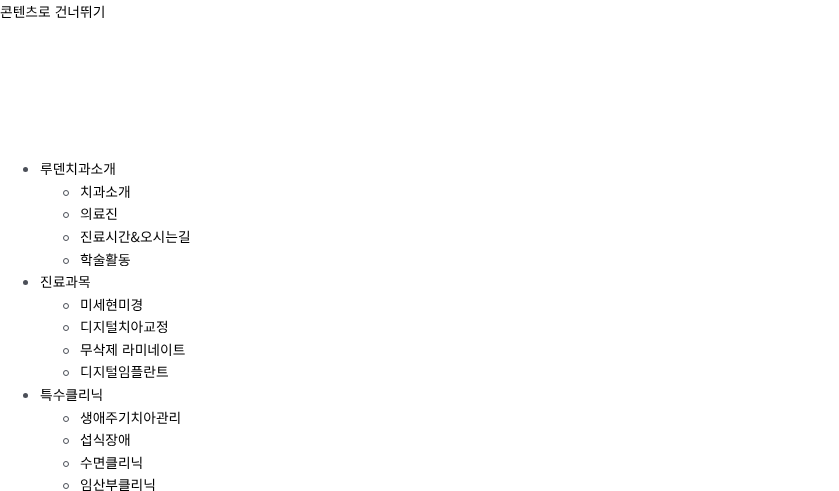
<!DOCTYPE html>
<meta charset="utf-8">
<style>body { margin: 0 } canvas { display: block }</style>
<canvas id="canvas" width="839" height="491"></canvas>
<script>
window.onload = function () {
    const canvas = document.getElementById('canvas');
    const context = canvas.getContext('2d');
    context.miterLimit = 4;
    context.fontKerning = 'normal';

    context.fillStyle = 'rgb(255, 255, 255)';
    context.fillRect(0, 0, 839, 491);
    context.fillStyle = 'rgb(75, 79, 88)';
    context.beginPath();
    context.arc(25.5, 169.5, 2.5, 0, 2 * Math.PI);
    context.fill();
    context.beginPath();
    context.arc(66, 193, 2.5, 0, 2 * Math.PI);
    context.strokeStyle = 'rgb(75, 79, 88)';
    context.stroke();
    context.beginPath();
    context.arc(66, 215, 2.5, 0, 2 * Math.PI);
    context.stroke();
    context.beginPath();
    context.arc(66, 238, 2.5, 0, 2 * Math.PI);
    context.stroke();
    context.beginPath();
    context.arc(66, 261, 2.5, 0, 2 * Math.PI);
    context.stroke();
    context.beginPath();
    context.arc(25.5, 282.5, 2.5, 0, 2 * Math.PI);
    context.fill();
    context.beginPath();
    context.arc(66, 306, 2.5, 0, 2 * Math.PI);
    context.stroke();
    context.beginPath();
    context.arc(66, 328, 2.5, 0, 2 * Math.PI);
    context.stroke();
    context.beginPath();
    context.arc(66, 351, 2.5, 0, 2 * Math.PI);
    context.stroke();
    context.beginPath();
    context.arc(66, 373, 2.5, 0, 2 * Math.PI);
    context.stroke();
    context.beginPath();
    context.arc(25.5, 395.5, 2.5, 0, 2 * Math.PI);
    context.fill();
    context.beginPath();
    context.arc(66, 419, 2.5, 0, 2 * Math.PI);
    context.stroke();
    context.beginPath();
    context.arc(66, 441, 2.5, 0, 2 * Math.PI);
    context.stroke();
    context.beginPath();
    context.arc(66, 464, 2.5, 0, 2 * Math.PI);
    context.stroke();
    context.beginPath();
    context.arc(66, 486, 2.5, 0, 2 * Math.PI);
    context.stroke();
    context.wordSpacing = '1px';
    context.font = '13.75px Noto Sans KR';
    context.fillStyle = 'rgb(0, 0, 0)';
    context.fillText('콘텐츠로 건너뛰기', 0, 17);
    context.wordSpacing = '0px';
    context.fillText('루덴치과소개', 40, 174);
    context.fillText('치과소개', 80, 197);
    context.fillText('의료진', 80, 219);
    context.fillText('진료시간&오시는길', 80, 242);
    context.fillText('학술활동', 80, 265);
    context.fillText('진료과목', 40, 287);
    context.fillText('미세현미경', 80, 310);
    context.fillText('디지털치아교정', 80, 332);
    context.wordSpacing = '1px';
    context.fillText('무삭제 라미네이트', 80, 355);
    context.wordSpacing = '0px';
    context.fillText('디지털임플란트', 80, 377);
    context.fillText('특수클리닉', 40, 400);
    context.fillText('생애주기치아관리', 80, 423);
    context.fillText('섭식장애', 80, 445);
    context.fillText('수면클리닉', 80, 468);
    context.fillText('임산부클리닉', 80, 490);
};
</script>
